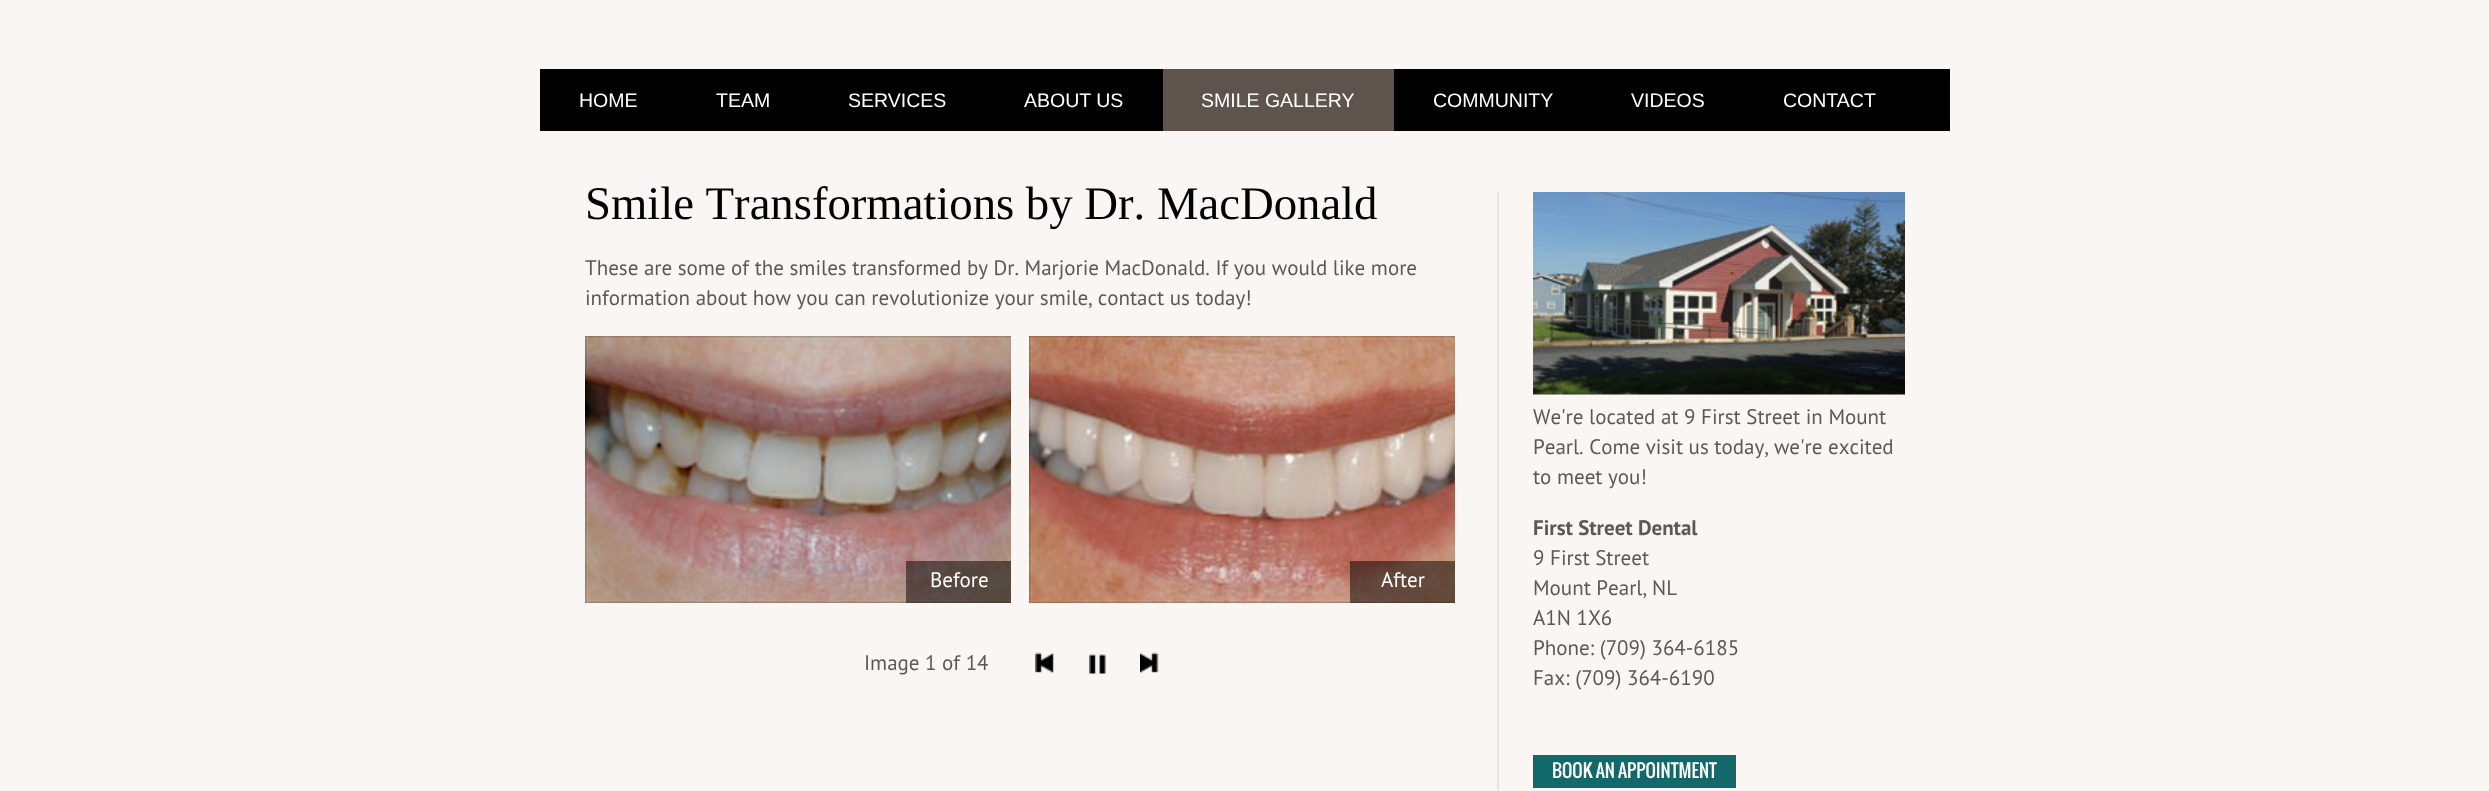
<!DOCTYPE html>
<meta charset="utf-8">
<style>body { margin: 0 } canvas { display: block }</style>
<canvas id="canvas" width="2489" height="791"></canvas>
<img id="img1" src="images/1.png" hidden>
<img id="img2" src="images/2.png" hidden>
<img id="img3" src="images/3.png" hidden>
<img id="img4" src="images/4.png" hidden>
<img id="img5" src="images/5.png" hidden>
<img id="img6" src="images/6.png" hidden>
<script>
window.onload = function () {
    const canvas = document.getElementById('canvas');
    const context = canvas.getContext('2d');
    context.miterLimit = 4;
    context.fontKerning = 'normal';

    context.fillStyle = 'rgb(249, 246, 243)';
    context.fillRect(0, 0, 2489, 791);
    context.fillStyle = 'rgb(0, 0, 0)';
    context.fillRect(540, 69, 1410, 62);
    context.fillStyle = 'rgb(95, 83, 78)';
    context.fillRect(1163, 69, 231, 62);
    context.drawImage(document.getElementById('img1'), 585, 336, 426, 267);
    context.fillStyle = 'rgba(0, 0, 0, 0.5)';
    context.fillRect(906, 561, 105, 42);
    context.drawImage(document.getElementById('img2'), 1029, 336, 426, 267);
    context.fillRect(1350, 561, 105, 42);
    context.drawImage(document.getElementById('img3'), 1035, 652, 20, 22);
    context.drawImage(document.getElementById('img4'), 1089, 654, 17, 20);
    context.drawImage(document.getElementById('img5'), 1140, 652, 19, 22);
    context.fillStyle = 'rgb(229, 229, 229)';
    context.fillRect(1497, 192, 2, 599);
    context.drawImage(document.getElementById('img6'), 1533, 192, 372, 203);
    context.fillStyle = 'rgb(19, 104, 105)';
    context.fillRect(1533, 755, 203, 33);
    context.font = '19.5px Liberation Sans';
    context.fillStyle = 'rgb(255, 255, 255)';
    context.fillText('HOME', 579, 107);
    context.fillText('TEAM', 716, 107);
    context.fillText('SERVICES', 848, 107);
    context.fillText('ABOUT US', 1024, 107);
    context.fillText('SMILE GALLERY', 1201, 107);
    context.fillText('COMMUNITY', 1433, 107);
    context.fillText('VIDEOS', 1631, 107);
    context.fillText('CONTACT', 1783, 107);
    context.font = '46.75px Liberation Serif';
    context.fillStyle = 'rgb(0, 0, 0)';
    context.fillText('Smile Transformations by Dr. MacDonald', 585, 219);
    context.font = '21px PT Sans';
    context.fillStyle = 'rgb(89, 89, 89)';
    context.fillText('These are some of the smiles transformed by Dr. Marjorie MacDonald. If you would like more', 585, 275);
    context.fillText('information about how you can revolutionize your smile, contact us today!', 585, 305);
    context.fillStyle = 'rgb(255, 255, 255)';
    context.fillText('Before', 930, 587);
    context.fillText('After', 1381, 587);
    context.fillStyle = 'rgb(89, 89, 89)';
    context.fillText('Image 1 of 14', 864, 670);
    context.fillText('We\'re located at 9 First Street in Mount', 1533, 424);
    context.fillText('Pearl. Come visit us today, we\'re excited', 1533, 454);
    context.fillText('to meet you!', 1533, 484);
    context.font = 'bold 21px PT Sans';
    context.fillText('First Street Dental', 1533, 535);
    context.font = '21px PT Sans';
    context.fillText('9 First Street', 1533, 565);
    context.fillText('Mount Pearl, NL', 1533, 595);
    context.fillText('A1N 1X6', 1533, 625);
    context.fillText('Phone: (709) 364-6185', 1533, 655);
    context.fillText('Fax: (709) 364-6190', 1533, 685);
    context.font = '18px Oswald';
    context.fillStyle = 'rgb(255, 255, 255)';
    context.fillText('BOOK AN APPOINTMENT', 1552, 778);
};
</script>
